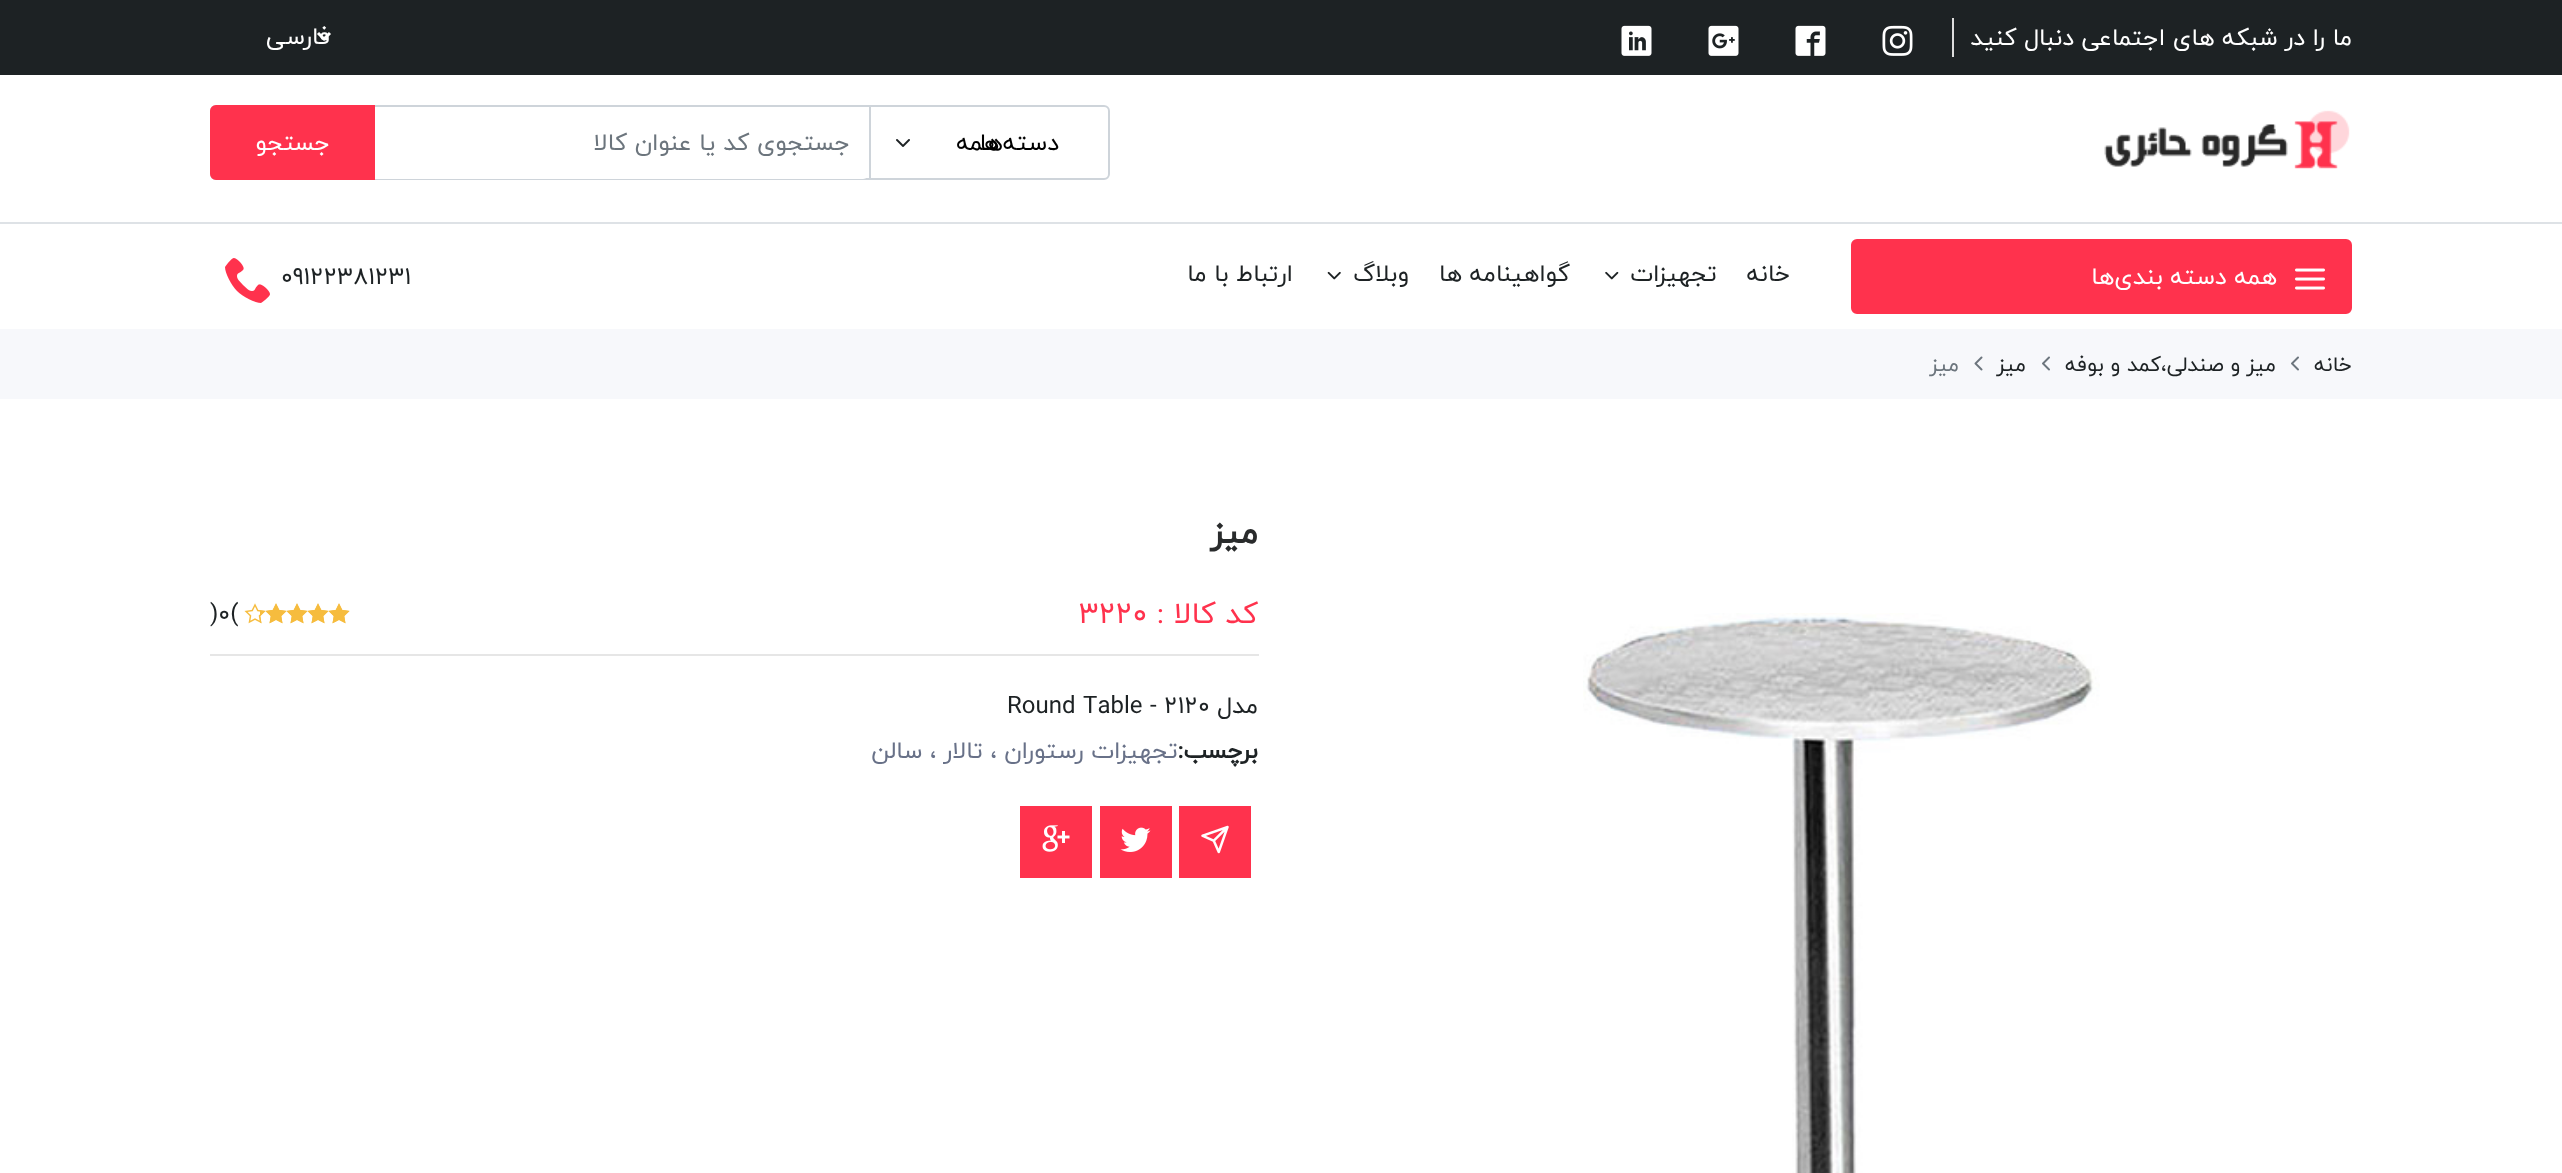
<!DOCTYPE html>
<meta charset="utf-8">
<style>body { margin: 0 } canvas { display: block }</style>
<canvas id="canvas" width="2562" height="1173"></canvas>
<img id="img1" src="images/1.png" hidden>
<img id="img2" src="images/2.png" hidden>
<img id="img3" src="images/3.png" hidden>
<img id="img4" src="images/4.png" hidden>
<img id="img5" src="images/5.png" hidden>
<img id="img6" src="images/6.png" hidden>
<img id="img7" src="images/7.png" hidden>
<img id="img8" src="images/8.png" hidden>
<img id="img9" src="images/9.png" hidden>
<img id="img10" src="images/10.png" hidden>
<img id="img11" src="images/11.png" hidden>
<img id="img12" src="images/12.png" hidden>
<img id="img13" src="images/13.png" hidden>
<img id="img14" src="images/14.png" hidden>
<img id="img15" src="images/15.png" hidden>
<img id="img16" src="images/16.png" hidden>
<img id="img17" src="images/17.png" hidden>
<img id="img18" src="images/18.png" hidden>
<script>
window.onload = function () {
    const canvas = document.getElementById('canvas');
    const context = canvas.getContext('2d');
    context.miterLimit = 4;
    context.fontKerning = 'normal';

    context.fillStyle = 'rgb(255, 255, 255)';
    context.fillRect(0, 0, 2562, 1173);
    context.fillStyle = 'rgb(29, 34, 36)';
    context.fillRect(0, 0, 2562, 75);
    context.fillStyle = 'rgb(221, 221, 221)';
    context.fillRect(1952, 18, 2, 39);
    context.drawImage(document.getElementById('img1'), 1882, 25, 31, 31);
    context.drawImage(document.getElementById('img2'), 1795, 25, 31, 31);
    context.drawImage(document.getElementById('img3'), 1708, 25, 31, 31);
    context.drawImage(document.getElementById('img4'), 1621, 25, 31, 31);
    context.beginPath();
    context.moveTo(318, 33);
    context.lineTo(324, 39);
    context.lineTo(330, 33);
    context.strokeStyle = 'rgb(255, 255, 255)';
    context.lineWidth = 3;
    context.stroke();
    context.drawImage(document.getElementById('img5'), 2104, 110, 246, 59);
    context.beginPath();
    context.roundRect(211, 106, 898, 73, 5);
    context.strokeStyle = 'rgb(206, 212, 218)';
    context.lineWidth = 2;
    context.stroke();
    context.fillStyle = 'rgb(206, 212, 218)';
    context.fillRect(869, 107, 2, 72);
    context.drawImage(document.getElementById('img6'), 896, 139, 14, 8);
    context.fillStyle = 'rgb(255, 255, 255)';
    context.beginPath();
    context.roundRect(212, 107, 657, 72, 6);
    context.fill();
    context.fillStyle = 'rgb(255, 50, 77)';
    context.beginPath();
    context.roundRect(211, 106, 163, 73, [5, 0, 0, 5]);
    context.fill();
    context.strokeStyle = 'rgb(255, 50, 77)';
    context.stroke();
    context.fillStyle = 'rgb(222, 226, 230)';
    context.fillRect(0, 222, 2562, 2);
    context.fillStyle = 'rgb(255, 50, 77)';
    context.beginPath();
    context.roundRect(1852, 240, 499, 73, 5);
    context.fill();
    context.stroke();
    context.drawImage(document.getElementById('img7'), 2295, 268, 30, 22);
    context.drawImage(document.getElementById('img8'), 1605, 271, 14, 9);
    context.drawImage(document.getElementById('img9'), 1327, 271, 14, 9);
    context.drawImage(document.getElementById('img10'), 225, 258, 45, 45);
    context.fillStyle = 'rgb(247, 248, 251)';
    context.fillRect(0, 329, 2562, 70);
    context.drawImage(document.getElementById('img11'), 2291, 356, 8, 15);
    context.drawImage(document.getElementById('img11'), 2042, 356, 8, 15);
    context.drawImage(document.getElementById('img12'), 1974, 356, 9, 15);
    context.drawImage(document.getElementById('img13'), 1583, 613, 517, 560);
    context.drawImage(document.getElementById('img14'), 244, 603, 106, 21);
    context.drawImage(document.getElementById('img15'), 260, 603, 90, 21);
    context.fillStyle = 'rgb(230, 230, 230)';
    context.fillRect(210, 654, 1049, 2);
    context.fillStyle = 'rgb(255, 50, 77)';
    context.fillRect(1179, 806, 72, 72);
    context.drawImage(document.getElementById('img16'), 1201, 825, 28, 29);
    context.fillRect(1100, 806, 72, 72);
    context.drawImage(document.getElementById('img17'), 1120, 827, 31, 25);
    context.fillRect(1020, 806, 72, 72);
    context.drawImage(document.getElementById('img18'), 1042, 825, 28, 27);
    context.direction = 'rtl';
    context.font = '24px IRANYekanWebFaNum';
    context.fillStyle = 'rgb(255, 255, 255)';
    context.fillText('ما را در شبکه های اجتماعی دنبال کنید', 2352, 45);
    context.fillText('فارسی', 330, 44);
    context.fillStyle = 'rgb(0, 0, 0)';
    context.fillText('همه', 999, 150);
    context.fillText('دسته‌ها', 1059, 150);
    context.fillStyle = 'rgb(108, 117, 125)';
    context.fillText('جستجوی کد یا عنوان کالا', 850, 150);
    context.fillStyle = 'rgb(255, 255, 255)';
    context.fillText('جستجو', 330, 150);
    context.fillText('همه دسته بندی‌ها', 2277, 284);
    context.fillStyle = 'rgb(29, 34, 36)';
    context.fillText('خانه', 1790, 281);
    context.fillText('تجهیزات', 1717, 281);
    context.fillText('گواهینامه ها', 1570, 281);
    context.fillText('وبلاگ', 1409, 281);
    context.fillText('ارتباط با ما', 1293, 281);
    context.direction = 'ltr';
    context.fillText('09122381231', 281, 284);
    context.direction = 'rtl';
    context.font = '21px IRANYekanWebFaNum';
    context.fillText('خانه', 2352, 371);
    context.fillText('میز و صندلی،کمد و بوفه', 2276, 371);
    context.fillText('میز', 2026, 371);
    context.fillStyle = 'rgb(108, 117, 125)';
    context.fillText('میز', 1959, 371);
    context.font = 'bold 34px IRANYekanWebFaNum';
    context.fillStyle = 'rgb(41, 43, 44)';
    context.fillText('میز', 1258, 543);
    context.font = '30px IRANYekanWebFaNum';
    context.fillStyle = 'rgb(255, 50, 77)';
    context.fillText('کد کالا :', 1258, 623);
    context.direction = 'ltr';
    context.fillText('3220', 1079, 623);
    context.font = '24px IRANYekanWebFaNum';
    context.fillStyle = 'rgb(29, 34, 36)';
    context.fillText(')0(', 210, 621);
    context.direction = 'rtl';
    context.fillText('مدل', 1258, 713);
    context.direction = 'ltr';
    context.fillText('Round Table - 2120', 1007, 713);
    context.direction = 'rtl';
    context.font = 'bold 24px IRANYekanWebFaNum';
    context.fillText('برچسب:', 1258, 758);
    context.font = '24px IRANYekanWebFaNum';
    context.fillStyle = 'rgb(104, 113, 136)';
    context.fillText('تجهیزات رستوران ، تالار ، سالن', 1178, 758);
};
</script>
